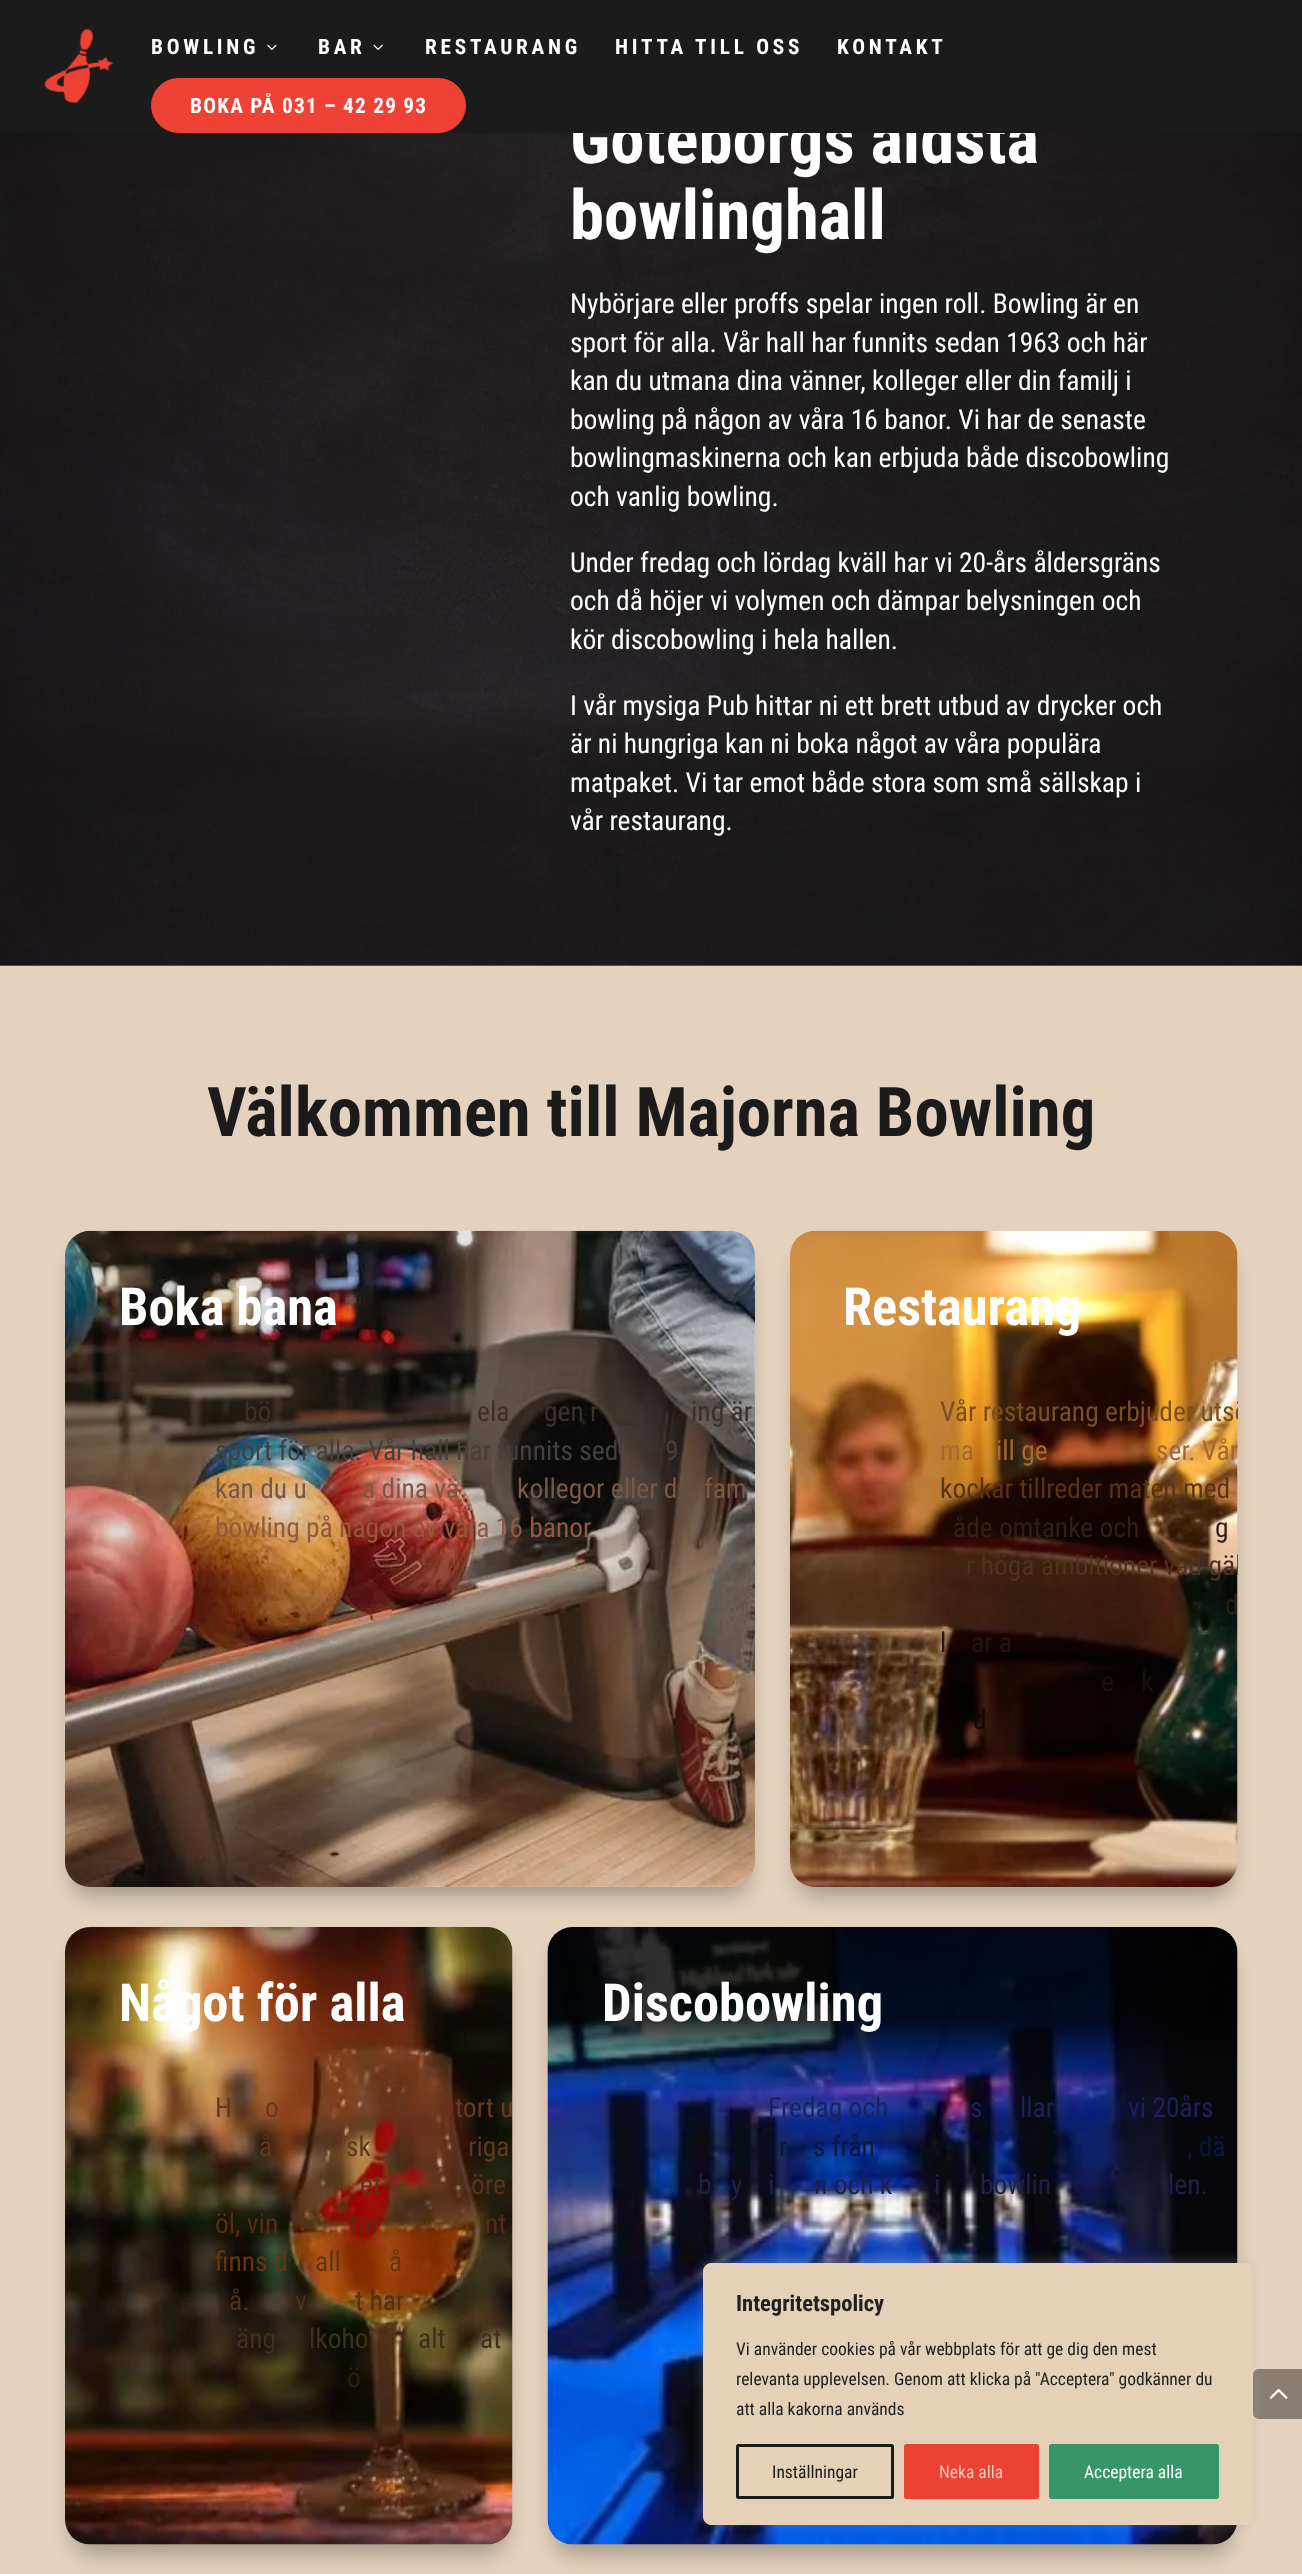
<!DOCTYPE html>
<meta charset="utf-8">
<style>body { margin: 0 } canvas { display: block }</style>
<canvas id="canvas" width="1302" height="2574"></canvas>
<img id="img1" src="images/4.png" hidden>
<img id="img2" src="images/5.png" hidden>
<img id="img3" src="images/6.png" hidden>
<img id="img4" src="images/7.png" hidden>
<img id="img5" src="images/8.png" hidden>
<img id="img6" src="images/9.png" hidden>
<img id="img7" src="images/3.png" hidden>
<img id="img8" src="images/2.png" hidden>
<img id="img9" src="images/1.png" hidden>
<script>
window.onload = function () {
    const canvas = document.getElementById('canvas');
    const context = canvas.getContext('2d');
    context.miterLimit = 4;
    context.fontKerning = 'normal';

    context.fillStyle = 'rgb(255, 255, 255)';
    context.fillRect(0, 0, 1302, 2574);
    context.drawImage(document.getElementById('img1'), 0, 133, 1302, 833);
    context.fillStyle = 'rgb(229, 210, 190)';
    context.fillRect(0, 966, 1302, 1608);
    context.fillStyle = 'rgba(0, 0, 0, 0.3)';
    context.filter = 'blur(11px)';
    context.beginPath();
    context.roundRect(73, 1254, 675, 641, 18);
    context.fill();
    context.filter = 'none';
    context.drawImage(document.getElementById('img2'), 65, 1230, 690, 657);
    context.filter = 'blur(11px)';
    context.beginPath();
    context.roundRect(798, 1254, 432, 641, 18);
    context.fill();
    context.filter = 'none';
    context.drawImage(document.getElementById('img3'), 790, 1230, 448, 657);
    context.filter = 'blur(11px)';
    context.beginPath();
    context.roundRect(73, 1950, 432, 603, 18);
    context.fill();
    context.filter = 'none';
    context.drawImage(document.getElementById('img4'), 65, 1927, 448, 618);
    context.filter = 'blur(11px)';
    context.beginPath();
    context.roundRect(555, 1950, 675, 603, 18);
    context.fill();
    context.filter = 'none';
    context.drawImage(document.getElementById('img5'), 547, 1927, 691, 618);
    context.fillStyle = 'rgb(137, 126, 114)';
    context.beginPath();
    context.moveTo(1259, 2369);
    context.lineTo(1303, 2369);
    context.lineTo(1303, 2419);
    context.lineTo(1259, 2419);
    context.bezierCurveTo(1255.5, 2419, 1253, 2416.5, 1253, 2413);
    context.lineTo(1253, 2375);
    context.bezierCurveTo(1253, 2371.5, 1255.5, 2369, 1259, 2369);
    context.closePath();
    context.fill();
    context.drawImage(document.getElementById('img6'), 1269, 2388, 19, 11);
    context.fillStyle = 'rgba(172, 171, 171, 0.3)';
    context.filter = 'blur(6px)';
    context.beginPath();
    context.roundRect(703, 2261, 550, 263, 8);
    context.fill();
    context.filter = 'none';
    context.fillStyle = 'rgb(229, 208, 184)';
    context.beginPath();
    context.roundRect(703.5, 2263.5, 549, 261, 7.5);
    context.fill();
    context.strokeStyle = 'rgb(229, 208, 184)';
    context.stroke();
    context.beginPath();
    context.roundRect(737.5, 2445.5, 155, 52, 1);
    context.strokeStyle = 'rgb(27, 27, 27)';
    context.lineWidth = 3;
    context.stroke();
    context.fillStyle = 'rgb(238, 65, 53)';
    context.beginPath();
    context.roundRect(905.5, 2445.5, 132, 52, 1);
    context.fill();
    context.strokeStyle = 'rgb(238, 65, 53)';
    context.stroke();
    context.fillStyle = 'rgb(54, 150, 105)';
    context.beginPath();
    context.roundRect(1050.5, 2445.5, 167, 52, 1);
    context.fill();
    context.strokeStyle = 'rgb(54, 150, 105)';
    context.stroke();
    context.font = 'bold 68.75px Roboto Condensed';
    context.fillStyle = 'rgb(255, 255, 255)';
    context.fillText('Göteborgs äldsta', 570, 163);
    context.fillStyle = 'rgb(27, 27, 27)';
    context.fillRect(0, 0, 1302, 133);
    context.fillStyle = 'rgb(239, 65, 53)';
    context.beginPath();
    context.roundRect(151.5, 78.5, 314, 54, 27);
    context.fill();
    context.strokeStyle = 'rgb(239, 65, 53)';
    context.lineWidth = 1;
    context.stroke();
    context.letterSpacing = '1.25px';
    context.font = 'bold 21.25px Roboto Condensed';
    context.fillStyle = 'rgb(255, 255, 255)';
    context.fillText('BOKA PÅ 031 – 42 29 93', 190, 113);
    context.letterSpacing = '3.75px';
    context.fillText('KONTAKT', 837, 54);
    context.fillText('HITTA TILL OSS', 615, 54);
    context.fillText('RESTAURANG', 425, 54);
    context.drawImage(document.getElementById('img7'), 373, 44, 10, 6);
    context.fillText('BAR', 318, 54);
    context.drawImage(document.getElementById('img8'), 267, 44, 10, 6);
    context.fillText('BOWLING', 151, 54);
    context.drawImage(document.getElementById('img9'), 44, 28, 70, 76);
    context.letterSpacing = '0px';
    context.font = 'bold 68.75px Roboto Condensed';
    context.fillText('bowlinghall', 570, 239);
    context.font = '27.5px Roboto Condensed';
    context.fillText('Nybörjare eller proffs spelar ingen roll. Bowling är en', 570, 313);
    context.fillText('sport för alla. Vår hall har funnits sedan 1963 och här', 570, 352);
    context.fillText('kan du utmana dina vänner, kolleger eller din familj i', 570, 390);
    context.fillText('bowling på någon av våra 16 banor. Vi har de senaste', 570, 429);
    context.fillText('bowlingmaskinerna och kan erbjuda både discobowling', 570, 467);
    context.fillText('och vanlig bowling.', 570, 506);
    context.fillText('Under fredag och lördag kväll har vi 20-års åldersgräns', 570, 572);
    context.fillText('och då höjer vi volymen och dämpar belysningen och', 570, 610);
    context.fillText('kör discobowling i hela hallen.', 570, 649);
    context.fillText('I vår mysiga Pub hittar ni ett brett utbud av drycker och', 570, 715);
    context.fillText('är ni hungriga kan ni boka något av våra populära', 570, 753);
    context.fillText('matpaket. Vi tar emot både stora som små sällskap i', 570, 792);
    context.fillText('vår restaurang.', 570, 830);
    context.font = 'bold 68.75px Roboto Condensed';
    context.fillStyle = 'rgb(27, 27, 27)';
    context.fillText('Välkommen till Majorna Bowling', 207, 1136);
    context.font = 'bold 52.5px Roboto Condensed';
    context.fillStyle = 'rgb(255, 255, 255)';
    context.fillText('Boka bana', 119, 1325);
    context.font = '27.5px Roboto Condensed';
    context.fillStyle = 'rgb(59, 49, 42)';
    context.fillText('bö', 244, 1421);
    context.fillText('ela', 477, 1421);
    context.fillText('gen r', 544, 1421);
    context.fillText('ing är', 691, 1421);
    context.fillStyle = 'rgb(68, 64, 61)';
    context.fillText('sport för alla. Vår hall har funnits sed', 215, 1460);
    context.fillText('9', 665, 1460);
    context.fillStyle = 'rgb(123, 87, 70)';
    context.fillText('kan du u', 215, 1498);
    context.fillText('a dina vä', 362, 1498);
    context.fillText('kollegor eller d', 517, 1498);
    context.fillText('fam', 704, 1498);
    context.fillStyle = 'rgb(145, 89, 61)';
    context.fillText('bowling på någon av våra 16 banor.', 215, 1537);
    context.font = 'bold 52.5px Roboto Condensed';
    context.fillStyle = 'rgb(255, 255, 255)';
    context.fillText('Restaurang', 843, 1325);
    context.save();
    context.beginPath();
    context.roundRect(790, 1231, 448, 657, 25);
    context.clip();
    context.font = '27.5px Roboto Condensed';
    context.fillStyle = 'rgb(121, 79, 34)';
    context.fillText('Vår restaurang erbjuder utsö', 940, 1421);
    context.restore();
    context.font = '27.5px Roboto Condensed';
    context.fillStyle = 'rgb(167, 104, 47)';
    context.fillText('ma', 940, 1460);
    context.fillText('ill ge', 996, 1460);
    context.fillText('ser. Vår', 1156, 1460);
    context.fillStyle = 'rgb(88, 51, 20)';
    context.fillText('kockar tillreder maten med', 940, 1498);
    context.fillStyle = 'rgb(51, 31, 22)';
    context.fillText('åde omtanke och', 953, 1537);
    context.fillText('g', 1215, 1537);
    context.save();
    context.beginPath();
    context.roundRect(790, 1231, 448, 657, 25);
    context.clip();
    context.fillStyle = 'rgb(81, 50, 33)';
    context.fillText('r höga ambitioner vad gäl', 966, 1575);
    context.restore();
    context.fillStyle = 'rgb(50, 27, 16)';
    context.fillText('d', 1225, 1614);
    context.fillStyle = 'rgb(36, 21, 14)';
    context.fillText('l', 940, 1652);
    context.fillText('ar a', 971, 1652);
    context.fillStyle = 'rgb(26, 19, 15)';
    context.fillText('e', 1101, 1691);
    context.fillText('k', 1141, 1691);
    context.fillStyle = 'rgb(18, 6, 3)';
    context.fillText('d', 973, 1729);
    context.font = 'bold 52.5px Roboto Condensed';
    context.fillStyle = 'rgb(255, 255, 255)';
    context.fillText('Något för alla', 119, 2021);
    context.font = '27.5px Roboto Condensed';
    context.fillStyle = 'rgb(104, 57, 30)';
    context.fillText('H', 215, 2117);
    context.fillText('o', 265, 2117);
    context.fillText('tort u', 455, 2117);
    context.fillStyle = 'rgb(94, 57, 32)';
    context.fillText('å', 259, 2156);
    context.fillText('sk', 346, 2156);
    context.fillText('riga', 468, 2156);
    context.fillStyle = 'rgb(91, 49, 28)';
    context.fillText('et', 360, 2194);
    context.fillText('öre', 471, 2194);
    context.fillStyle = 'rgb(88, 43, 18)';
    context.fillText('öl, vin', 215, 2233);
    context.fillText('tar', 350, 2233);
    context.fillText('nt', 485, 2233);
    context.fillStyle = 'rgb(101, 52, 17)';
    context.fillText('finns d', 215, 2271);
    context.fillText('all', 315, 2271);
    context.fillText('å', 389, 2271);
    context.fillStyle = 'rgb(77, 52, 23)';
    context.fillText('å.', 229, 2310);
    context.fillText('v', 295, 2310);
    context.fillText('t har', 355, 2310);
    context.fillStyle = 'rgb(61, 49, 27)';
    context.fillText('äng', 236, 2348);
    context.fillText('lkoho', 309, 2348);
    context.fillText('alt', 418, 2348);
    context.fillText('at', 480, 2348);
    context.fillStyle = 'rgb(43, 32, 14)';
    context.fillText('ö', 347, 2387);
    context.font = 'bold 52.5px Roboto Condensed';
    context.fillStyle = 'rgb(255, 255, 255)';
    context.fillText('Discobowling', 602, 2021);
    context.font = '27.5px Roboto Condensed';
    context.fillStyle = 'rgb(27, 33, 92)';
    context.fillText('Fredag och', 768, 2117);
    context.fillText('s', 970, 2117);
    context.fillText('llar', 1020, 2117);
    context.fillText('vi 20års', 1128, 2117);
    context.fillStyle = 'rgb(11, 22, 60)';
    context.fillText('r', 779, 2156);
    context.fillText('s från', 813, 2156);
    context.fillText(', dä', 1187, 2156);
    context.fillStyle = 'rgb(28, 34, 70)';
    context.fillText('b', 698, 2194);
    context.fillText('y', 731, 2194);
    context.fillText('i', 768, 2194);
    context.fillText('n och k', 814, 2194);
    context.fillText('i', 934, 2194);
    context.fillText('bowlin', 980, 2194);
    context.fillText('len.', 1168, 2194);
    context.font = 'bold 22.5px Roboto Condensed';
    context.fillStyle = 'rgb(33, 33, 33)';
    context.fillText('Integritetspolicy', 736, 2311);
    context.font = '17.5px Roboto Condensed';
    context.fillText('Vi använder cookies på vår webbplats för att ge dig den mest', 736, 2355);
    context.fillText('relevanta upplevelsen. Genom att klicka på "Acceptera" godkänner du', 736, 2385);
    context.fillText('att alla kakorna används', 736, 2415);
    context.fillStyle = 'rgb(27, 27, 27)';
    context.fillText('Inställningar', 772, 2478);
    context.fillStyle = 'rgb(229, 208, 184)';
    context.fillText('Neka alla', 939, 2478);
    context.fillStyle = 'rgb(255, 255, 255)';
    context.fillText('Acceptera alla', 1084, 2478);
};
</script>
